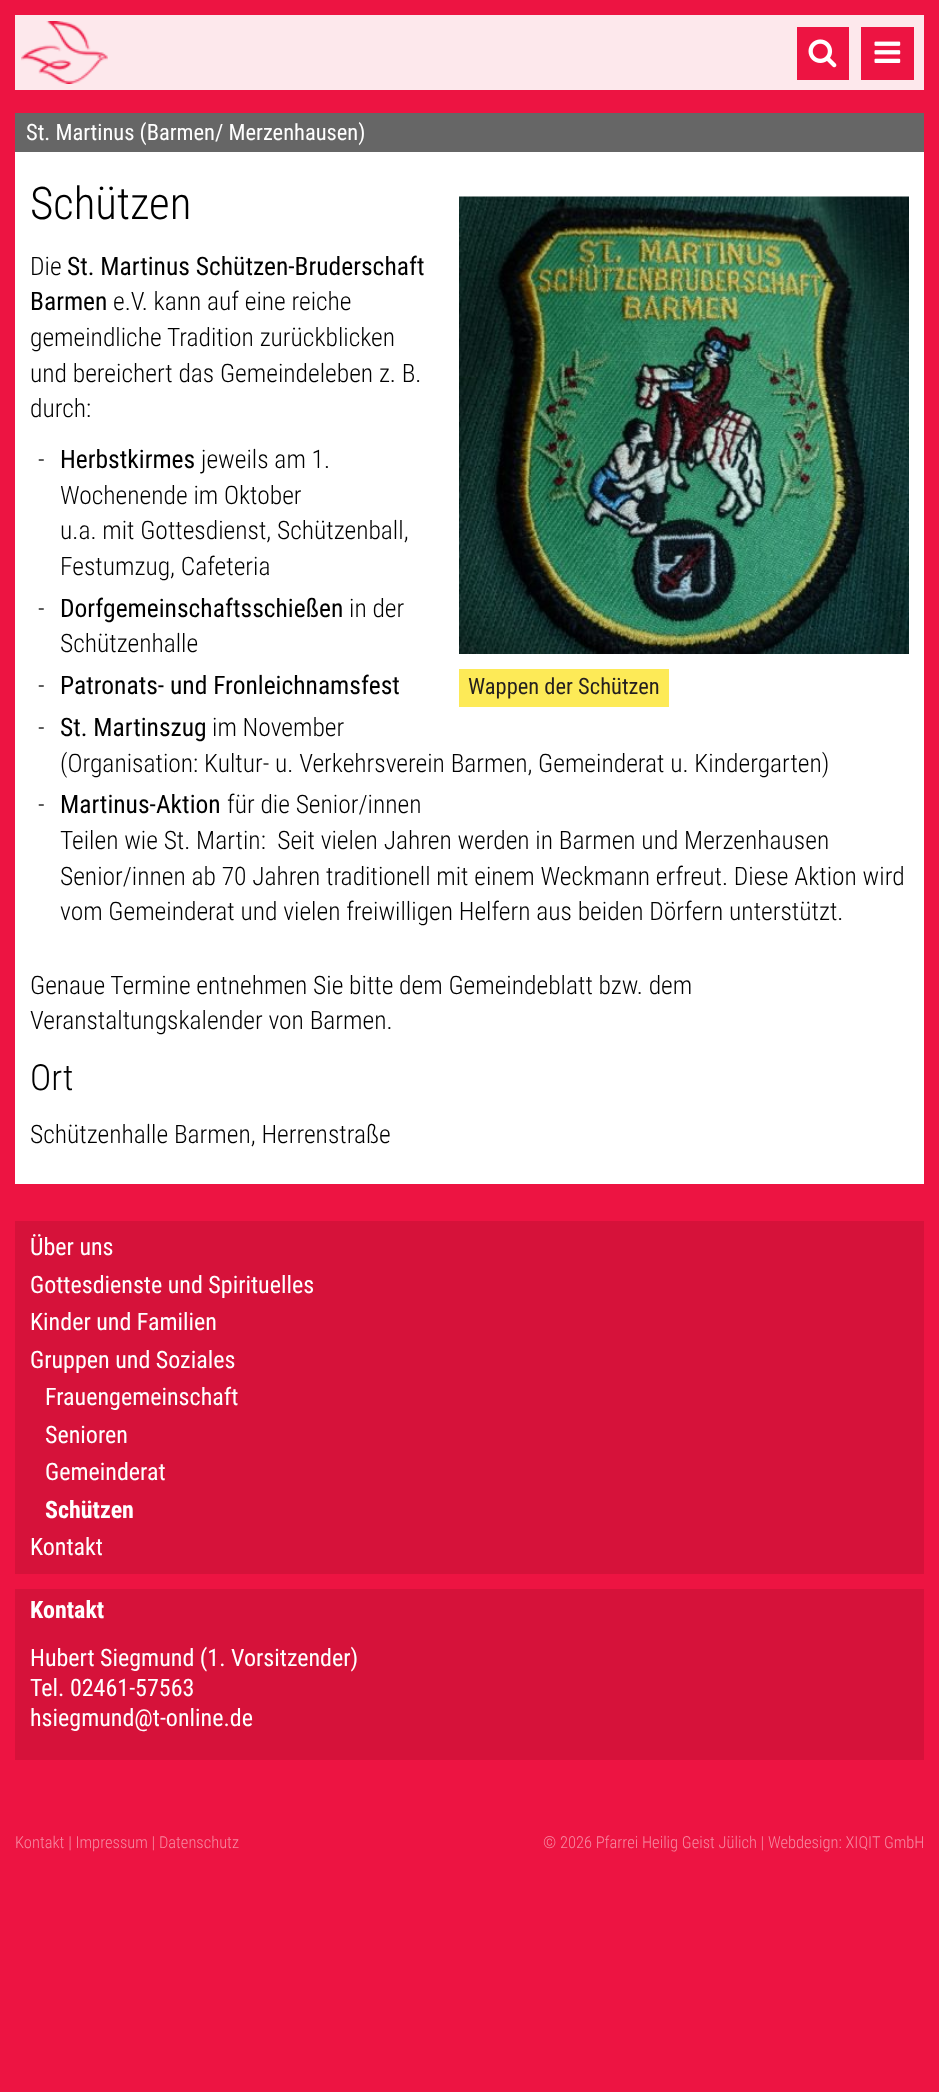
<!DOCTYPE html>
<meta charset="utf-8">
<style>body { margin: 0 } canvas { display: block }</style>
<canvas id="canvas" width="939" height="2092"></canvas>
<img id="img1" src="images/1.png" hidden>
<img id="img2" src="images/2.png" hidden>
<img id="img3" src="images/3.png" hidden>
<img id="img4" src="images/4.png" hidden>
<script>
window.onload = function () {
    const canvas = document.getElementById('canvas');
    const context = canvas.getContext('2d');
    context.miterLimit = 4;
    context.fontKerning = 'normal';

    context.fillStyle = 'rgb(237, 20, 66)';
    context.fillRect(0, 0, 939, 2092);
    context.fillStyle = 'rgb(253, 232, 236)';
    context.fillRect(15, 15, 909, 75);
    context.drawImage(document.getElementById('img1'), 21, 21, 87, 63);
    context.fillStyle = 'rgb(237, 20, 66)';
    context.fillRect(797, 27, 52, 53);
    context.drawImage(document.getElementById('img2'), 808, 39, 29, 29);
    context.fillRect(861, 27, 53, 53);
    context.drawImage(document.getElementById('img3'), 874, 41, 27, 22);
    context.fillStyle = 'rgb(102, 102, 102)';
    context.fillRect(15, 113, 909, 39);
    context.fillStyle = 'rgb(255, 255, 255)';
    context.fillRect(15, 152, 909, 1032);
    context.drawImage(document.getElementById('img4'), 459, 196, 450, 458);
    context.fillStyle = 'rgb(253, 234, 87)';
    context.fillRect(459, 669, 210, 38);
    context.fillStyle = 'rgb(214, 18, 58)';
    context.fillRect(15, 1221, 909, 353);
    context.fillRect(15, 1589, 909, 171);
    context.font = '22.5px Roboto Condensed';
    context.fillStyle = 'rgb(255, 255, 255)';
    context.fillText('St. Martinus (Barmen/ Merzenhausen)', 26, 140);
    context.font = '300 45px Roboto Condensed';
    context.fillStyle = 'rgb(0, 0, 0)';
    context.fillText('Schützen', 30, 219);
    context.font = '300 25.5px Roboto Condensed';
    context.fillText('Die', 30, 275);
    context.font = '25.5px Roboto Condensed';
    context.fillText('St. Martinus Schützen-Bruderschaft', 67, 275);
    context.fillText('Barmen', 30, 310);
    context.font = '300 25.5px Roboto Condensed';
    context.fillText('e.V. kann auf eine reiche', 113, 310);
    context.fillText('gemeindliche Tradition zurückblicken', 30, 346);
    context.fillText('und bereichert das Gemeindeleben z. B.', 30, 382);
    context.fillText('durch:', 30, 417);
    context.fillText('-', 38, 468);
    context.font = '25.5px Roboto Condensed';
    context.fillText('Herbstkirmes', 60, 468);
    context.font = '300 25.5px Roboto Condensed';
    context.fillText('jeweils am 1.', 201, 468);
    context.fillText('Wochenende im Oktober', 60, 504);
    context.fillText('u.a. mit Gottesdienst, Schützenball,', 60, 539);
    context.fillText('Festumzug, Cafeteria', 60, 575);
    context.fillText('-', 38, 617);
    context.font = '25.5px Roboto Condensed';
    context.fillText('Dorfgemeinschaftsschießen', 60, 617);
    context.font = '300 25.5px Roboto Condensed';
    context.fillText('in der', 349, 617);
    context.fillText('Schützenhalle', 60, 652);
    context.fillText('-', 38, 694);
    context.font = '25.5px Roboto Condensed';
    context.fillText('Patronats- und Fronleichnamsfest', 60, 694);
    context.font = '300 25.5px Roboto Condensed';
    context.fillText('-', 38, 736);
    context.font = '25.5px Roboto Condensed';
    context.fillText('St. Martinszug', 60, 736);
    context.font = '300 25.5px Roboto Condensed';
    context.fillText('im November', 212, 736);
    context.fillText('(Organisation: Kultur- u. Verkehrsverein Barmen, Gemeinderat u. Kindergarten)', 60, 772);
    context.fillText('-', 38, 813);
    context.font = '25.5px Roboto Condensed';
    context.fillText('Martinus-Aktion', 60, 813);
    context.font = '300 25.5px Roboto Condensed';
    context.fillText('für die Senior/innen', 227, 813);
    context.fillText('Teilen wie St. Martin:  Seit vielen Jahren werden in Barmen und Merzenhausen', 60, 849);
    context.fillText('Senior/innen ab 70 Jahren traditionell mit einem Weckmann erfreut. Diese Aktion wird', 60, 885);
    context.fillText('vom Gemeinderat und vielen freiwilligen Helfern aus beiden Dörfern unterstützt.', 60, 920);
    context.font = '22.5px Roboto Condensed';
    context.fillStyle = 'rgb(36, 31, 31)';
    context.fillText('Wappen der Schützen', 468, 694);
    context.font = '300 25.5px Roboto Condensed';
    context.fillStyle = 'rgb(0, 0, 0)';
    context.fillText('Genaue Termine entnehmen Sie bitte dem Gemeindeblatt bzw. dem', 30, 994);
    context.fillText('Veranstaltungskalender von Barmen.', 30, 1029);
    context.font = '300 36px Roboto Condensed';
    context.fillText('Ort', 30, 1090);
    context.font = '300 25.5px Roboto Condensed';
    context.fillText('Schützenhalle Barmen, Herrenstraße', 30, 1143);
    context.font = '24px Roboto Condensed';
    context.fillStyle = 'rgb(255, 255, 255)';
    context.fillText('Über uns', 30, 1255);
    context.fillText('Gottesdienste und Spirituelles', 30, 1293);
    context.fillText('Kinder und Familien', 30, 1330);
    context.fillText('Gruppen und Soziales', 30, 1368);
    context.fillText('Frauengemeinschaft', 45, 1405);
    context.fillText('Senioren', 45, 1443);
    context.fillText('Gemeinderat', 45, 1480);
    context.font = 'bold 24px Roboto Condensed';
    context.fillText('Schützen', 45, 1518);
    context.font = '24px Roboto Condensed';
    context.fillText('Kontakt', 30, 1555);
    context.font = 'bold 24px Roboto Condensed';
    context.fillText('Kontakt', 30, 1618);
    context.font = '24px Roboto Condensed';
    context.fillText('Hubert Siegmund (1. Vorsitzender)', 30, 1666);
    context.fillText('Tel. 02461-57563', 30, 1696);
    context.fillText('hsiegmund@t-online.de', 30, 1726);
    context.font = '300 16.5px Roboto Condensed';
    context.fillStyle = 'rgb(246, 138, 161)';
    context.fillText('Kontakt | Impressum | Datenschutz', 15, 1848);
    context.fillText('© 2026 Pfarrei Heilig Geist Jülich | Webdesign: XIQIT GmbH', 543, 1848);
};
</script>
